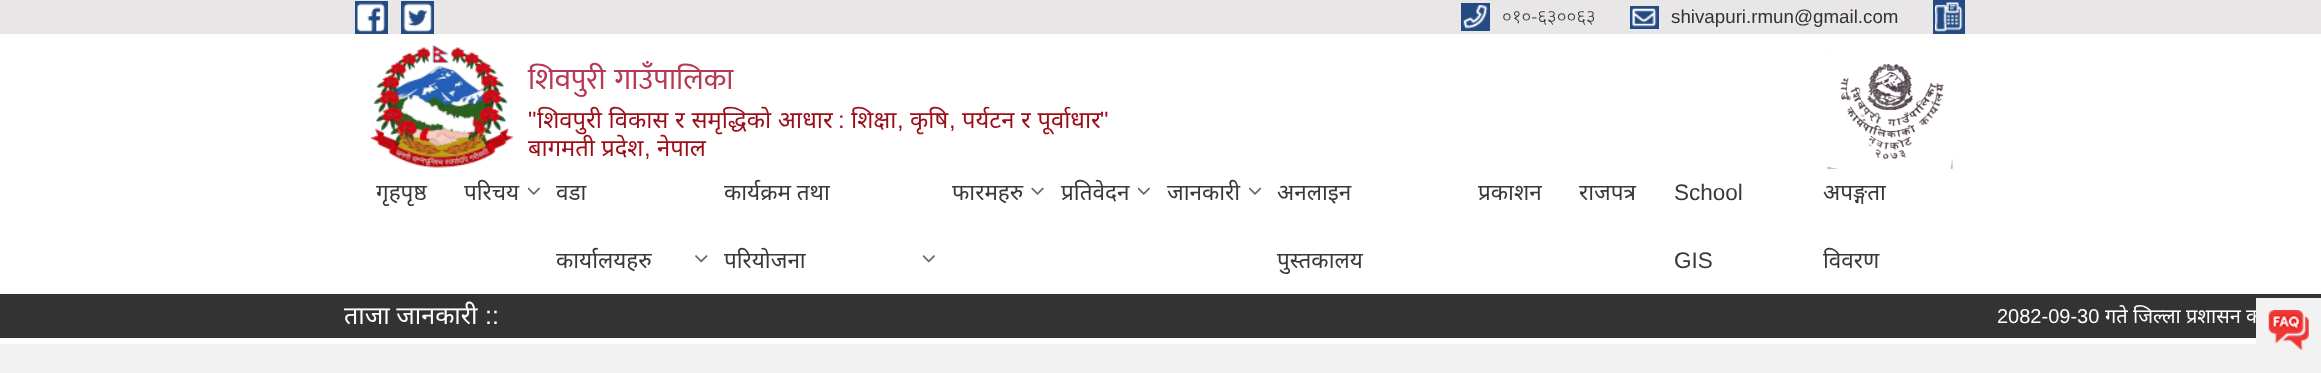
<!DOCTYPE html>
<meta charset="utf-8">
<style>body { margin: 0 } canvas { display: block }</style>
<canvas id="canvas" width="2321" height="373"></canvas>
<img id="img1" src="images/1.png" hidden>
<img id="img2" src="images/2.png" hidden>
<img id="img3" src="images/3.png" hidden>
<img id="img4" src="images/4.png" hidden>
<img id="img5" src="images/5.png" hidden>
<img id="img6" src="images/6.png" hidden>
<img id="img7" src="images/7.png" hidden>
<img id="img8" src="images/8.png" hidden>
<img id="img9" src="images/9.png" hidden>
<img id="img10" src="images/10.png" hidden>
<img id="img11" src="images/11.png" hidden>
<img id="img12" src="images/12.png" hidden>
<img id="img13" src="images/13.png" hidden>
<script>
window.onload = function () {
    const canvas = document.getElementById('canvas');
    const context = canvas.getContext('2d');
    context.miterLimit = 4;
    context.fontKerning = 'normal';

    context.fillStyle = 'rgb(255, 255, 255)';
    context.fillRect(0, 0, 2321, 373);
    context.fillStyle = 'rgb(232, 230, 230)';
    context.fillRect(0, 0, 2321, 34);
    context.fillStyle = 'rgb(35, 74, 131)';
    context.fillRect(355, 1, 33, 33);
    context.fillRect(401, 1, 33, 33);
    context.drawImage(document.getElementById('img1'), 357, 3, 28, 29);
    context.drawImage(document.getElementById('img2'), 403, 3, 29, 29);
    context.fillRect(1933, 0, 32, 34);
    context.fillRect(1461, 3, 29, 28);
    context.drawImage(document.getElementById('img3'), 1463, 5, 25, 24);
    context.fillRect(1630, 6, 29, 23);
    context.drawImage(document.getElementById('img4'), 1632, 8, 25, 19);
    context.drawImage(document.getElementById('img5'), 1935, 2, 28, 30);
    context.drawImage(document.getElementById('img6'), 370, 44, 144, 124);
    context.drawImage(document.getElementById('img7'), 1827, 54, 126, 115);
    context.drawImage(document.getElementById('img8'), 528, 187, 12, 8);
    context.drawImage(document.getElementById('img9'), 695, 255, 13, 8);
    context.drawImage(document.getElementById('img10'), 923, 255, 12, 8);
    context.drawImage(document.getElementById('img11'), 1031, 187, 13, 8);
    context.drawImage(document.getElementById('img8'), 1138, 187, 12, 8);
    context.drawImage(document.getElementById('img12'), 1249, 187, 12, 8);
    context.fillStyle = 'rgb(51, 51, 51)';
    context.fillRect(0, 294, 2321, 44);
    context.fillStyle = 'rgb(242, 242, 242)';
    context.fillRect(0, 344, 2321, 29);
    context.font = '300 18.75px Noto Sans';
    context.fillStyle = 'rgb(51, 51, 51)';
    context.fillText('०१०-६३००६३', 1502, 23);
    context.font = '18.75px Liberation Sans';
    context.fillText('shivapuri.rmun@gmail.com', 1671, 23);
    context.wordSpacing = '2px';
    context.font = '30px Mukta';
    context.fillStyle = 'rgb(184, 57, 85)';
    context.fillText('शिवपुरी गाउँपालिका', 528, 89);
    context.wordSpacing = '0px';
    context.font = '23.75px Liberation Sans';
    context.fillStyle = 'rgb(158, 12, 24)';
    context.fillText('"', 528, 128);
    context.wordSpacing = '0.5px';
    context.font = '23.75px Noto Sans';
    context.fillText('शिवपुरी विकास र समृद्धिको आधार', 537, 128);
    context.wordSpacing = '0px';
    context.fillText('शिक्षा', 851, 128);
    context.wordSpacing = '0.5px';
    context.fillText('पर्यटन र पूर्वाधार', 962, 128);
    context.wordSpacing = '0px';
    context.font = '23.75px Liberation Sans';
    context.fillText('"', 1100, 128);
    context.fillText(':', 838, 128);
    context.fillText(',', 897, 128);
    context.font = '23.75px Noto Sans';
    context.fillText('कृषि', 910, 128);
    context.font = '23.75px Liberation Sans';
    context.fillText(',', 949, 128);
    context.font = '23.75px Noto Sans';
    context.fillText('बागमती प्रदेश', 528, 156);
    context.font = '23.75px Liberation Sans';
    context.fillText(',', 644, 156);
    context.font = '23.75px Noto Sans';
    context.fillText('नेपाल', 657, 156);
    context.font = '22.5px Noto Sans';
    context.fillStyle = 'rgb(57, 57, 57)';
    context.fillText('गृहपृष्ठ', 376, 200);
    context.fillText('परिचय', 464, 200);
    context.fillText('वडा', 556, 200);
    context.fillText('कार्यालयहरु', 556, 268);
    context.fillText('कार्यक्रम तथा', 724, 200);
    context.fillText('परियोजना', 724, 268);
    context.fillText('फारमहरु', 952, 200);
    context.fillText('प्रतिवेदन', 1061, 200);
    context.fillText('जानकारी', 1167, 200);
    context.fillText('अनलाइन', 1277, 200);
    context.fillText('पुस्तकालय', 1277, 268);
    context.fillText('प्रकाशन', 1478, 200);
    context.fillText('राजपत्र', 1579, 200);
    context.font = '22.5px Liberation Sans';
    context.fillText('School', 1674, 200);
    context.fillText('GIS', 1674, 268);
    context.font = '22.5px Noto Sans';
    context.fillText('अपङ्गता', 1823, 200);
    context.fillText('विवरण', 1823, 268);
    context.font = '25px Noto Sans';
    context.fillStyle = 'rgb(255, 255, 255)';
    context.fillText('ताजा जानकारी', 344, 324);
    context.font = '25px Liberation Sans';
    context.fillText('::', 485, 324);
    context.font = '20px Liberation Sans';
    context.fillText('2082-09-30', 1997, 323);
    context.font = '20px Noto Sans';
    context.fillText('गते', 2105, 323);
    context.fillText('जिल्ला प्रशासन क', 2133, 323);
    context.fillStyle = 'rgb(242, 242, 242)';
    context.fillRect(2256, 298, 65, 46);
    context.drawImage(document.getElementById('img13'), 2268, 310, 41, 40);
};
</script>
